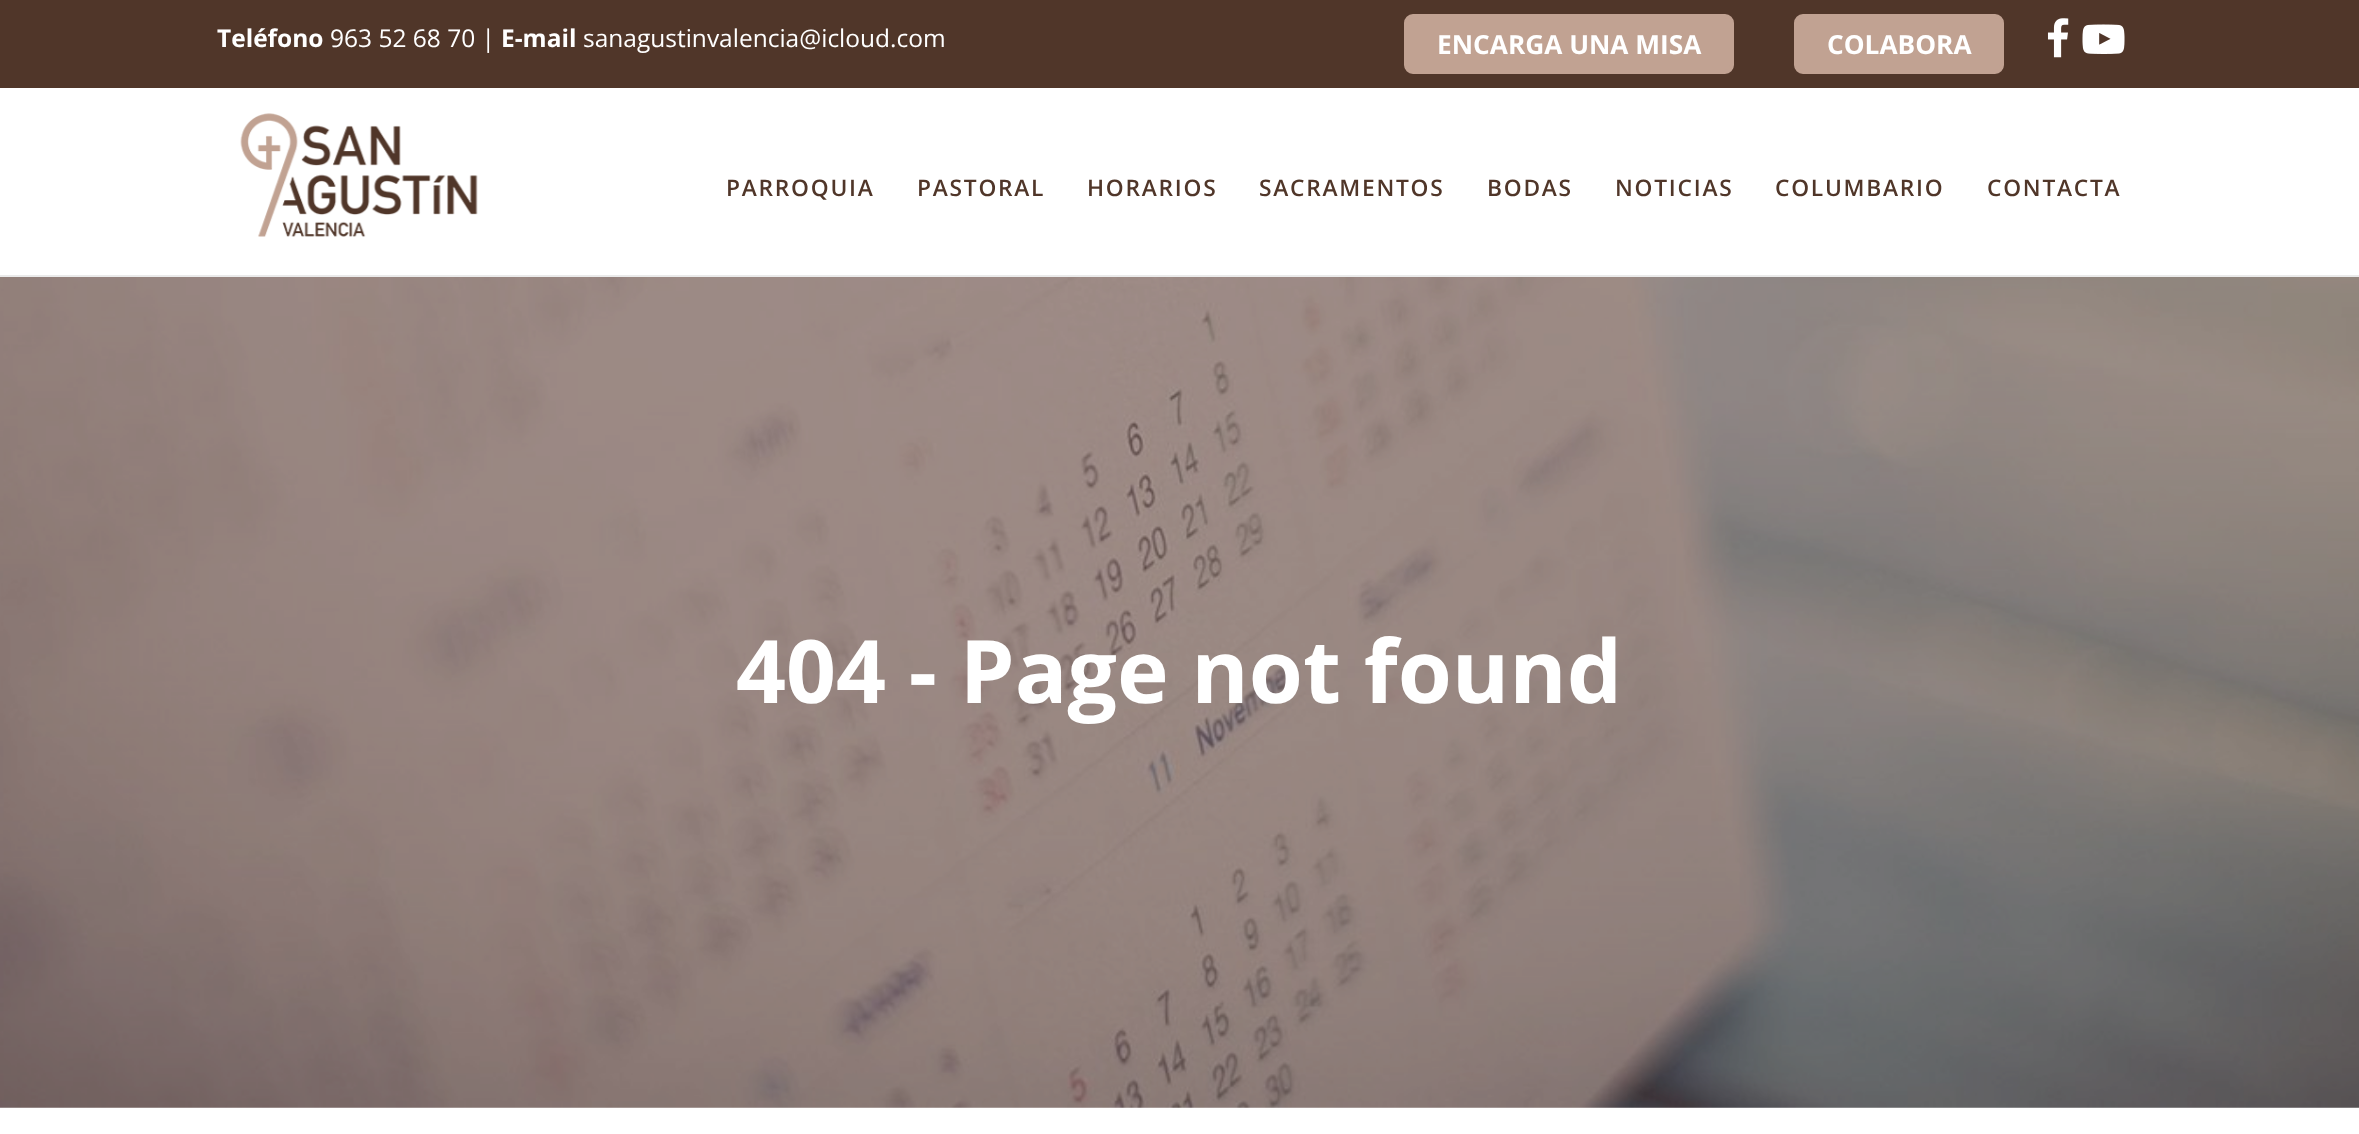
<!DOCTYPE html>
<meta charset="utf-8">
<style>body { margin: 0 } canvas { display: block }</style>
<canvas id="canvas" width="2359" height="1134"></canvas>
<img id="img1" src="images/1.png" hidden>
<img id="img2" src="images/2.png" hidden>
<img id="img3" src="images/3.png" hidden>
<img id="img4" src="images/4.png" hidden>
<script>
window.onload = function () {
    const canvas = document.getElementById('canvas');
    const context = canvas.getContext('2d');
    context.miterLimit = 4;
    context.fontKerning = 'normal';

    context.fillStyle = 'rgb(255, 255, 255)';
    context.fillRect(0, 0, 2359, 1134);
    context.fillStyle = 'rgb(80, 54, 41)';
    context.fillRect(0, 0, 2359, 88);
    context.fillStyle = 'rgb(193, 162, 146)';
    context.beginPath();
    context.roundRect(1406, 16, 326, 56, 7);
    context.fill();
    context.strokeStyle = 'rgb(193, 162, 146)';
    context.lineWidth = 4;
    context.stroke();
    context.beginPath();
    context.roundRect(1796, 16, 206, 56, 7);
    context.fill();
    context.stroke();
    context.drawImage(document.getElementById('img1'), 2047, 18, 22, 40);
    context.drawImage(document.getElementById('img2'), 2082, 24, 43, 30);
    context.fillStyle = 'rgb(234, 234, 234)';
    context.fillRect(0, 275, 2359, 2);
    context.drawImage(document.getElementById('img3'), 240, 113, 238, 124);
    context.drawImage(document.getElementById('img4'), 0, 277, 2359, 831);
    context.font = 'bold 24.5px Open Sans';
    context.fillStyle = 'rgb(255, 255, 255)';
    context.fillText('Teléfono', 217, 47);
    context.font = '24.5px Open Sans';
    context.fillText('963 52 68 70 |', 330, 47);
    context.font = 'bold 24.5px Open Sans';
    context.fillText('E-mail', 501, 47);
    context.font = '24.5px Open Sans';
    context.fillText('sanagustinvalencia@icloud.com', 583, 47);
    context.font = 'bold 26.25px Open Sans';
    context.fillText('ENCARGA UNA MISA', 1437, 54);
    context.fillText('COLABORA', 1827, 54);
    context.letterSpacing = '1.75px';
    context.font = '600 22.75px Open Sans';
    context.fillStyle = 'rgb(80, 54, 41)';
    context.fillText('PARROQUIA', 726, 196);
    context.fillText('PASTORAL', 917, 196);
    context.fillText('HORARIOS', 1087, 196);
    context.fillText('SACRAMENTOS', 1259, 196);
    context.fillText('BODAS', 1487, 196);
    context.fillText('NOTICIAS', 1615, 196);
    context.fillText('COLUMBARIO', 1775, 196);
    context.fillText('CONTACTA', 1987, 196);
    context.letterSpacing = '0px';
    context.font = 'bold 87.5px Open Sans';
    context.fillStyle = 'rgb(255, 255, 255)';
    context.fillText('404 - Page not found', 736, 703);
};
</script>
